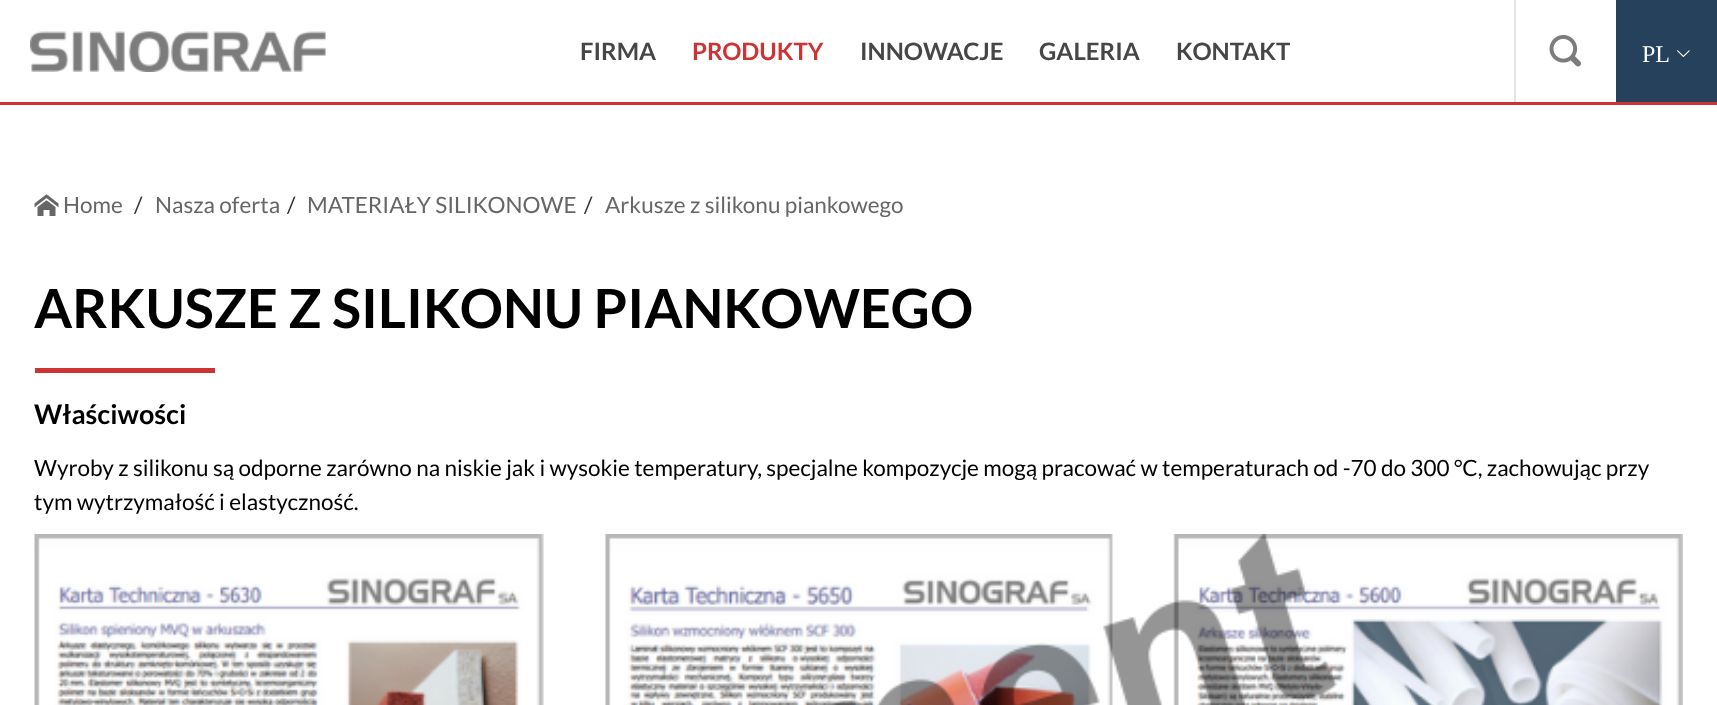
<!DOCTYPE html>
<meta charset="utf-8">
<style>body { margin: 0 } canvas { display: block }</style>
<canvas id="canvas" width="1717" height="705"></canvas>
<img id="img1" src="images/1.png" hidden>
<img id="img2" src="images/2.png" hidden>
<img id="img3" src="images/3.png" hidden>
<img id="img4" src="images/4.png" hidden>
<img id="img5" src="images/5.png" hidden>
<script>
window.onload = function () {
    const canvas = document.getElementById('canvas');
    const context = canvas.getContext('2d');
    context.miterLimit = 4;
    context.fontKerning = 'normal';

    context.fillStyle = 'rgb(255, 255, 255)';
    context.fillRect(0, 0, 1717, 705);
    context.fillStyle = 'rgb(206, 51, 51)';
    context.fillRect(0, 102, 1717, 3);
    context.drawImage(document.getElementById('img1'), 30, 31, 296, 41);
    context.fillStyle = 'rgb(229, 229, 229)';
    context.fillRect(1514, 0, 2, 102);
    context.drawImage(document.getElementById('img2'), 1549, 35, 32, 32);
    context.fillStyle = 'rgb(37, 65, 91)';
    context.fillRect(1616, 0, 101, 102);
    context.drawImage(document.getElementById('img3'), 1677, 50, 13, 7);
    context.drawImage(document.getElementById('img4'), 34, 194, 25, 22);
    context.fillStyle = 'rgb(206, 51, 51)';
    context.fillRect(35, 368, 180, 5);
    context.drawImage(document.getElementById('img5'), 34, 534, 1649, 171);
    context.font = 'bold 24px Lato';
    context.fillStyle = 'rgb(70, 70, 70)';
    context.fillText('FIRMA', 580, 60);
    context.fillStyle = 'rgb(206, 51, 51)';
    context.fillText('PRODUKTY', 692, 60);
    context.fillStyle = 'rgb(70, 70, 70)';
    context.fillText('INNOWACJE', 860, 60);
    context.fillText('GALERIA', 1039, 60);
    context.fillText('KONTAKT', 1176, 60);
    context.font = '24px Liberation Serif';
    context.fillStyle = 'rgb(255, 255, 255)';
    context.fillText('PL', 1642, 62);
    context.font = '22.5px Lato';
    context.fillStyle = 'rgb(102, 102, 102)';
    context.fillText('Home', 63, 213);
    context.fillStyle = 'rgb(51, 51, 51)';
    context.fillText('/', 134, 213);
    context.fillStyle = 'rgb(102, 102, 102)';
    context.fillText('Nasza oferta', 155, 213);
    context.fillStyle = 'rgb(51, 51, 51)';
    context.fillText('/', 287, 213);
    context.fillStyle = 'rgb(102, 102, 102)';
    context.fillText('MATERIAŁY SILIKONOWE', 307, 213);
    context.fillStyle = 'rgb(51, 51, 51)';
    context.fillText('/', 584, 213);
    context.fillStyle = 'rgb(102, 102, 102)';
    context.fillText('Arkusze z silikonu piankowego', 605, 213);
    context.font = 'bold 54px Lato';
    context.fillStyle = 'rgb(0, 0, 0)';
    context.fillText('ARKUSZE Z SILIKONU PIANKOWEGO', 34, 328);
    context.font = 'bold 27px Lato';
    context.fillText('Właściwości', 34, 424);
    context.font = '22.5px Lato';
    context.fillText('Wyroby z silikonu są odporne zarówno na niskie jak i wysokie temperatury, specjalne kompozycje mogą pracować w temperaturach od -70 do 300 °C, zachowując przy', 34, 476);
    context.fillText('tym wytrzymałość i elastyczność.', 34, 510);
};
</script>
